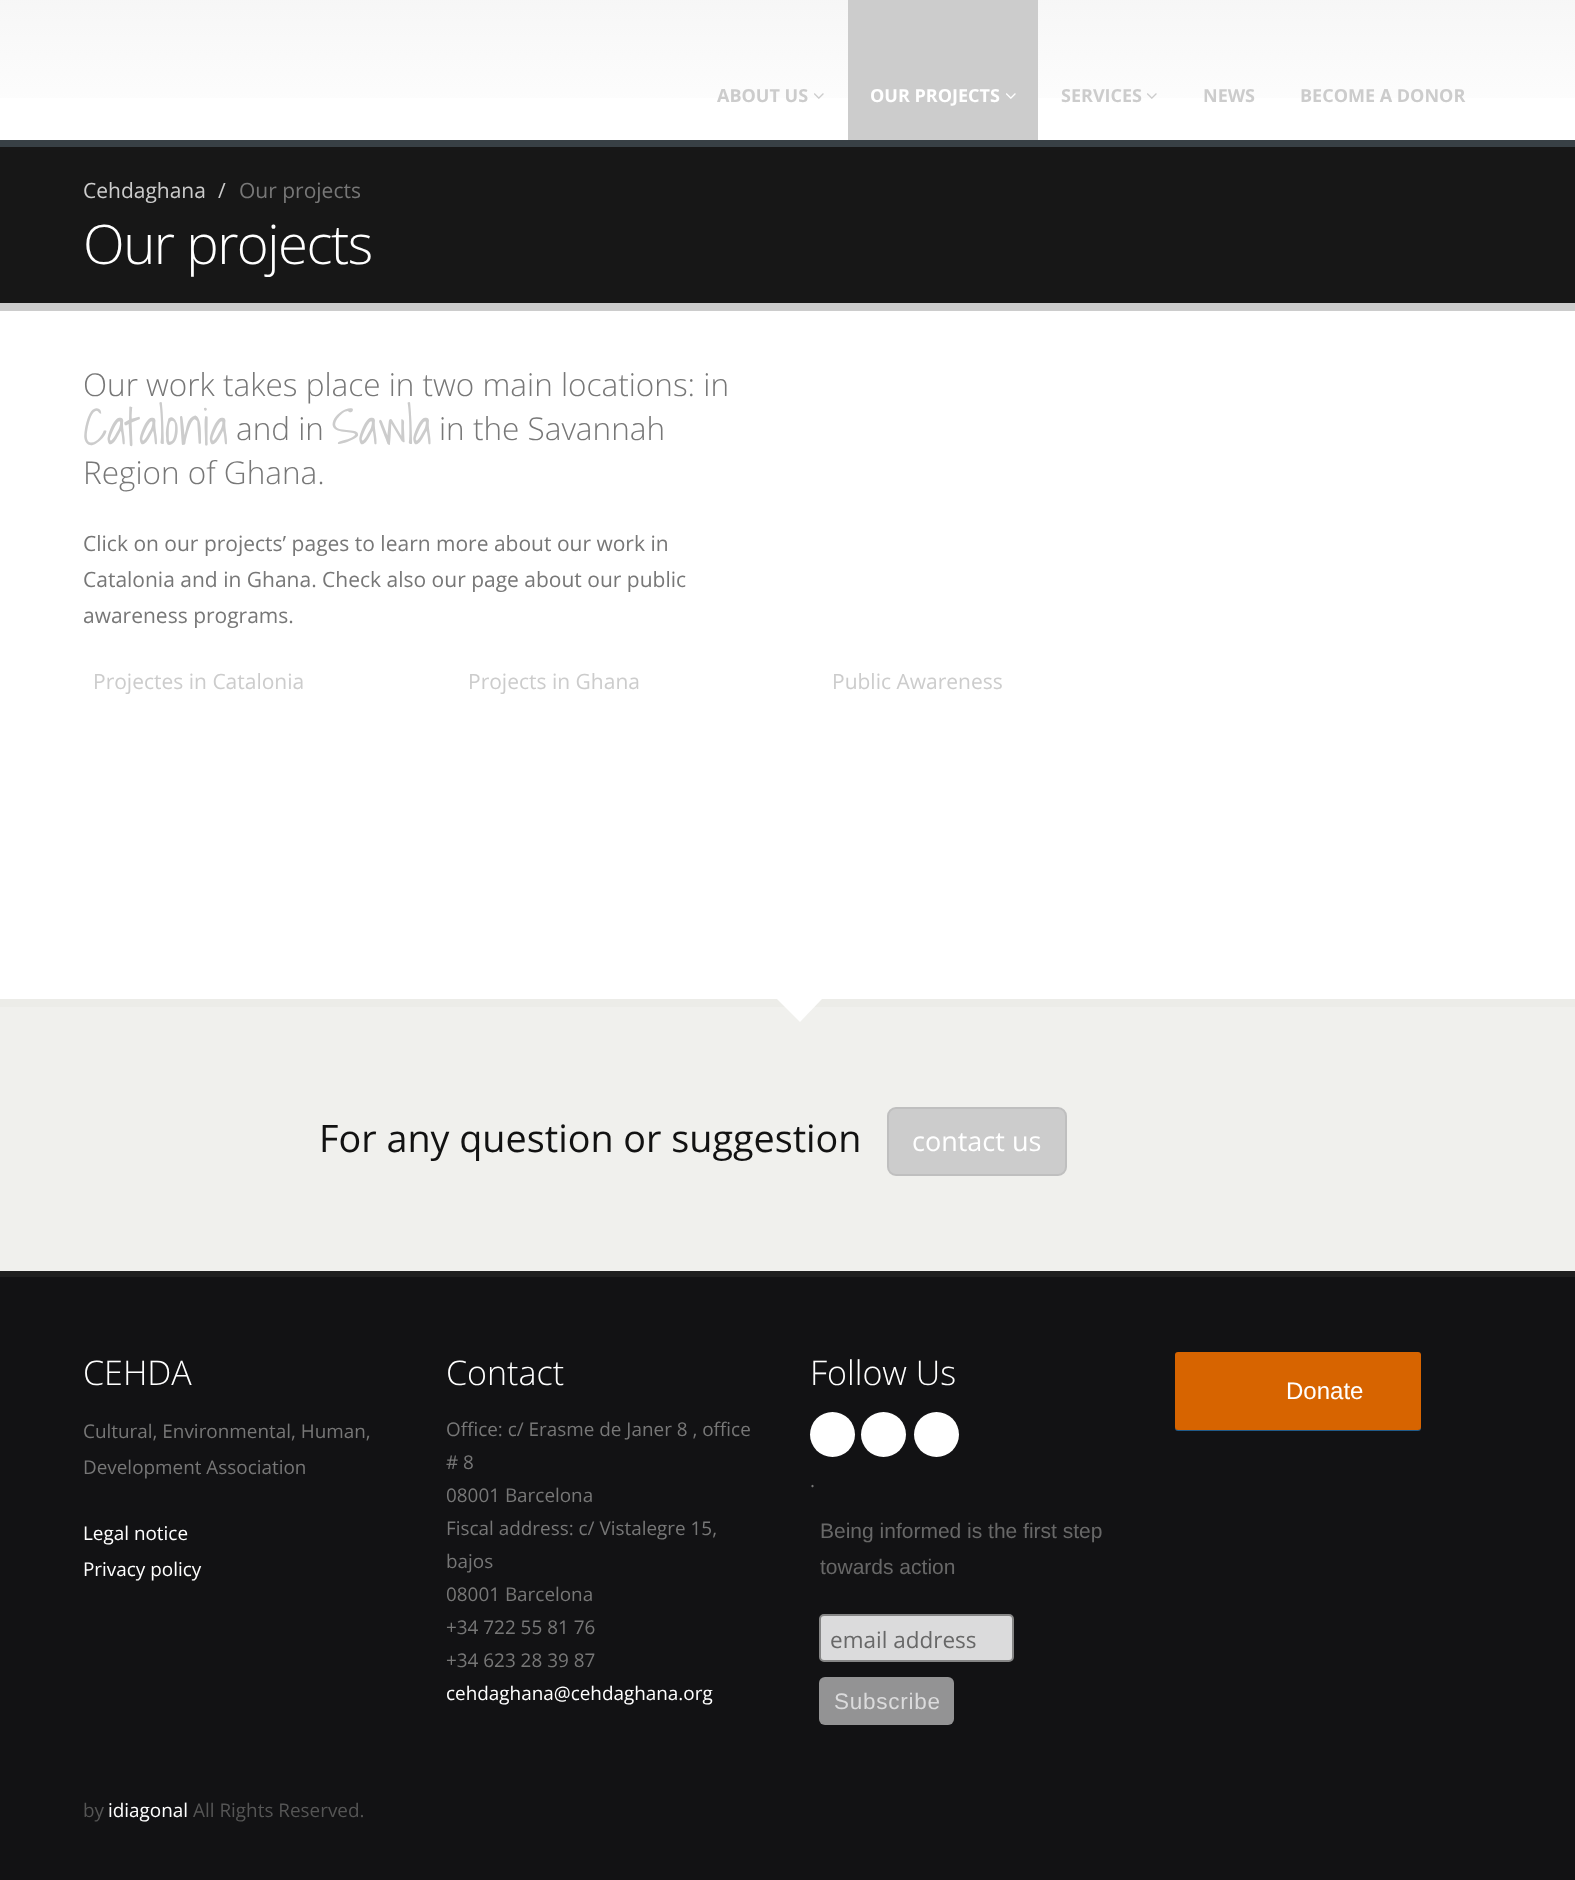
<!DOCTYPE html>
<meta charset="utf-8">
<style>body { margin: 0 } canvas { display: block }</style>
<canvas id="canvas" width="1575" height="1880"></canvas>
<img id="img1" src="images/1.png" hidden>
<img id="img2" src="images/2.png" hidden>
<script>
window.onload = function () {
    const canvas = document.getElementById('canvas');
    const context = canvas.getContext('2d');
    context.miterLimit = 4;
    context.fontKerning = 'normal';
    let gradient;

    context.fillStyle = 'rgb(255, 255, 255)';
    context.fillRect(0, 0, 1575, 1880);
    gradient = context.createLinearGradient(788, -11, 788, 140);
    gradient.addColorStop(0, 'rgb(246, 246, 246)');
    gradient.addColorStop(1, 'rgb(255, 255, 255)');
    context.fillStyle = gradient;
    context.fillRect(0, 0, 1575, 98);
    context.drawImage(document.getElementById('img1'), 814, 93, 10, 6);
    context.fillStyle = 'rgb(204, 204, 204)';
    context.fillRect(848, 0, 190, 140);
    context.drawImage(document.getElementById('img2'), 1006, 93, 10, 6);
    context.drawImage(document.getElementById('img1'), 1147, 93, 10, 6);
    context.fillStyle = 'rgb(23, 23, 23)';
    context.fillRect(0, 147, 1575, 156);
    context.fillStyle = 'rgb(56, 64, 69)';
    context.fillRect(0, 140, 1575, 7);
    context.fillStyle = 'rgb(204, 204, 204)';
    context.fillRect(0, 303, 1575, 8);
    context.fillStyle = 'rgb(240, 240, 237)';
    context.fillRect(0, 1007, 1575, 264);
    context.fillStyle = 'rgb(236, 236, 232)';
    context.fillRect(0, 999, 1575, 8);
    context.fillStyle = 'rgb(255, 255, 255)';
    context.beginPath();
    context.moveTo(777, 999);
    context.lineTo(822, 999);
    context.lineTo(800, 1022);
    context.closePath();
    context.fill();
    context.fillStyle = 'rgb(204, 204, 204)';
    context.beginPath();
    context.roundRect(888, 1108, 178, 67, 8);
    context.fill();
    context.strokeStyle = 'rgb(191, 191, 191)';
    context.lineWidth = 2;
    context.stroke();
    context.fillStyle = 'rgb(18, 18, 20)';
    context.fillRect(0, 1277, 1575, 603);
    context.fillStyle = 'rgb(31, 31, 31)';
    context.fillRect(0, 1271, 1575, 6);
    context.fillStyle = 'rgb(255, 255, 255)';
    context.beginPath();
    context.arc(832.5, 1434.5, 22.5, 0, 2 * Math.PI);
    context.fill();
    context.beginPath();
    context.arc(883.5, 1434.5, 22.5, 0, 2 * Math.PI);
    context.fill();
    context.beginPath();
    context.arc(936.5, 1434.5, 22.5, 0, 2 * Math.PI);
    context.fill();
    context.fillStyle = 'rgb(219, 219, 220)';
    context.beginPath();
    context.roundRect(820, 1615, 193, 46, 4);
    context.fill();
    context.strokeStyle = 'rgb(133, 133, 133)';
    context.stroke();
    context.fillStyle = 'rgb(147, 147, 148)';
    context.beginPath();
    context.roundRect(819, 1677, 135, 48, 6);
    context.fill();
    context.fillStyle = 'rgb(31, 90, 137)';
    context.beginPath();
    context.moveTo(1175, 1428);
    context.bezierCurveTo(1175, 1430, 1176, 1431, 1178, 1431);
    context.lineTo(1418, 1431);
    context.bezierCurveTo(1420, 1431, 1421, 1430, 1421, 1428);
    context.lineTo(1421, 1356);
    context.lineTo(1420, 1354);
    context.lineTo(1420, 1414);
    context.bezierCurveTo(1420, 1420, 1423, 1429, 1418, 1430);
    context.lineTo(1178, 1430);
    context.bezierCurveTo(1177, 1429, 1176, 1429, 1175, 1428);
    context.closePath();
    context.fill();
    context.fillStyle = 'rgb(215, 100, 0)';
    context.beginPath();
    context.roundRect(1175, 1352, 246, 78, 3);
    context.fill();
    context.font = 'bold 18px Open Sans';
    context.fillStyle = 'rgb(204, 204, 204)';
    context.fillText('ABOUT US', 717, 102);
    context.fillStyle = 'rgb(255, 255, 255)';
    context.fillText('OUR PROJECTS', 870, 102);
    context.fillStyle = 'rgb(204, 204, 204)';
    context.fillText('SERVICES', 1061, 102);
    context.fillText('NEWS', 1203, 102);
    context.fillText('BECOME A DONOR', 1300, 102);
    context.font = '21px Open Sans';
    context.fillText('Cehdaghana', 83, 198);
    context.fillText('/', 218, 198);
    context.fillStyle = 'rgb(119, 119, 119)';
    context.fillText('Our projects', 239, 198);
    context.letterSpacing = '-1.5px';
    context.font = '300 54.5px Open Sans';
    context.fillStyle = 'rgb(255, 255, 255)';
    context.fillText('Our projects', 83, 264);
    context.letterSpacing = '0px';
    context.font = '300 31.5px Open Sans';
    context.fillStyle = 'rgb(119, 119, 119)';
    context.fillText('Our work takes place in two main locations: in', 83, 396);
    context.font = '300 50.5px Shadows Into Light';
    context.fillStyle = 'rgb(204, 204, 204)';
    context.fillText('Catalonia', 83, 445);
    context.font = '300 31.5px Open Sans';
    context.fillStyle = 'rgb(119, 119, 119)';
    context.fillText('and in', 236, 440);
    context.font = '300 50.5px Shadows Into Light';
    context.fillStyle = 'rgb(204, 204, 204)';
    context.fillText('Sawla', 332, 445);
    context.font = '300 31.5px Open Sans';
    context.fillStyle = 'rgb(119, 119, 119)';
    context.fillText('in the Savannah', 439, 440);
    context.fillText('Region of Ghana.', 83, 484);
    context.font = '21px Open Sans';
    context.fillText('Click on our projects’ pages to learn more about our work in', 83, 551);
    context.fillText('Catalonia and in Ghana. Check also our page about our public', 83, 587);
    context.fillText('awareness programs.', 83, 623);
    context.fillStyle = 'rgb(204, 204, 204)';
    context.fillText('Projectes in Catalonia', 93, 689);
    context.fillText('Projects in Ghana', 468, 689);
    context.fillText('Public Awareness', 832, 689);
    context.font = '37.75px Open Sans';
    context.fillStyle = 'rgb(18, 18, 18)';
    context.fillText('For any question or suggestion', 319, 1152);
    context.font = '27px Open Sans';
    context.fillStyle = 'rgb(255, 255, 255)';
    context.fillText('contact us', 912, 1151);
    context.font = '300 34px Open Sans';
    context.fillText('CEHDA', 83, 1385);
    context.font = '18.9px Open Sans';
    context.fillStyle = 'rgb(119, 119, 119)';
    context.fillText('Cultural, Environmental, Human,', 83, 1438);
    context.fillText('Development Association', 83, 1474);
    context.fillStyle = 'rgb(255, 255, 255)';
    context.fillText('Legal notice', 83, 1540);
    context.fillText('Privacy policy', 83, 1576);
    context.font = '300 34px Open Sans';
    context.fillText('Contact', 446, 1385);
    context.font = '18.9px Open Sans';
    context.fillStyle = 'rgb(119, 119, 119)';
    context.fillText('Office: c/ Erasme de Janer 8 , office', 446, 1436);
    context.fillText('# 8', 446, 1469);
    context.fillText('08001 Barcelona', 446, 1502);
    context.fillText('Fiscal address: c/ Vistalegre 15,', 446, 1535);
    context.fillText('bajos', 446, 1568);
    context.fillText('08001 Barcelona', 446, 1601);
    context.fillText('+34 722 55 81 76', 446, 1634);
    context.fillText('+34 623 28 39 87', 446, 1667);
    context.fillStyle = 'rgb(255, 255, 255)';
    context.fillText('cehdaghana@cehdaghana.org', 446, 1700);
    context.font = '300 34px Open Sans';
    context.fillText('Follow Us', 810, 1385);
    context.font = '18.9px Open Sans';
    context.fillStyle = 'rgb(119, 119, 119)';
    context.fillText('.', 810, 1487);
    context.font = '21px Liberation Sans';
    context.fillStyle = 'rgb(104, 104, 104)';
    context.fillText('Being informed is the first step', 820, 1538);
    context.fillText('towards action', 820, 1574);
    context.font = '22.5px Open Sans';
    context.fillText('email address', 830, 1648);
    context.letterSpacing = '0.75px';
    context.font = '22.5px Liberation Sans';
    context.fillStyle = 'rgb(219, 219, 220)';
    context.fillText('Subscribe', 834, 1709);
    context.letterSpacing = '0px';
    context.font = '24px Liberation Sans';
    context.fillStyle = 'rgb(255, 255, 255)';
    context.fillText('Donate', 1286, 1399);
    context.font = '18.9px Open Sans';
    context.fillStyle = 'rgb(85, 85, 85)';
    context.fillText('by', 83, 1817);
    context.fillStyle = 'rgb(255, 255, 255)';
    context.fillText('idiagonal', 108, 1817);
    context.fillStyle = 'rgb(85, 85, 85)';
    context.fillText('All Rights Reserved.', 193, 1817);
};
</script>
